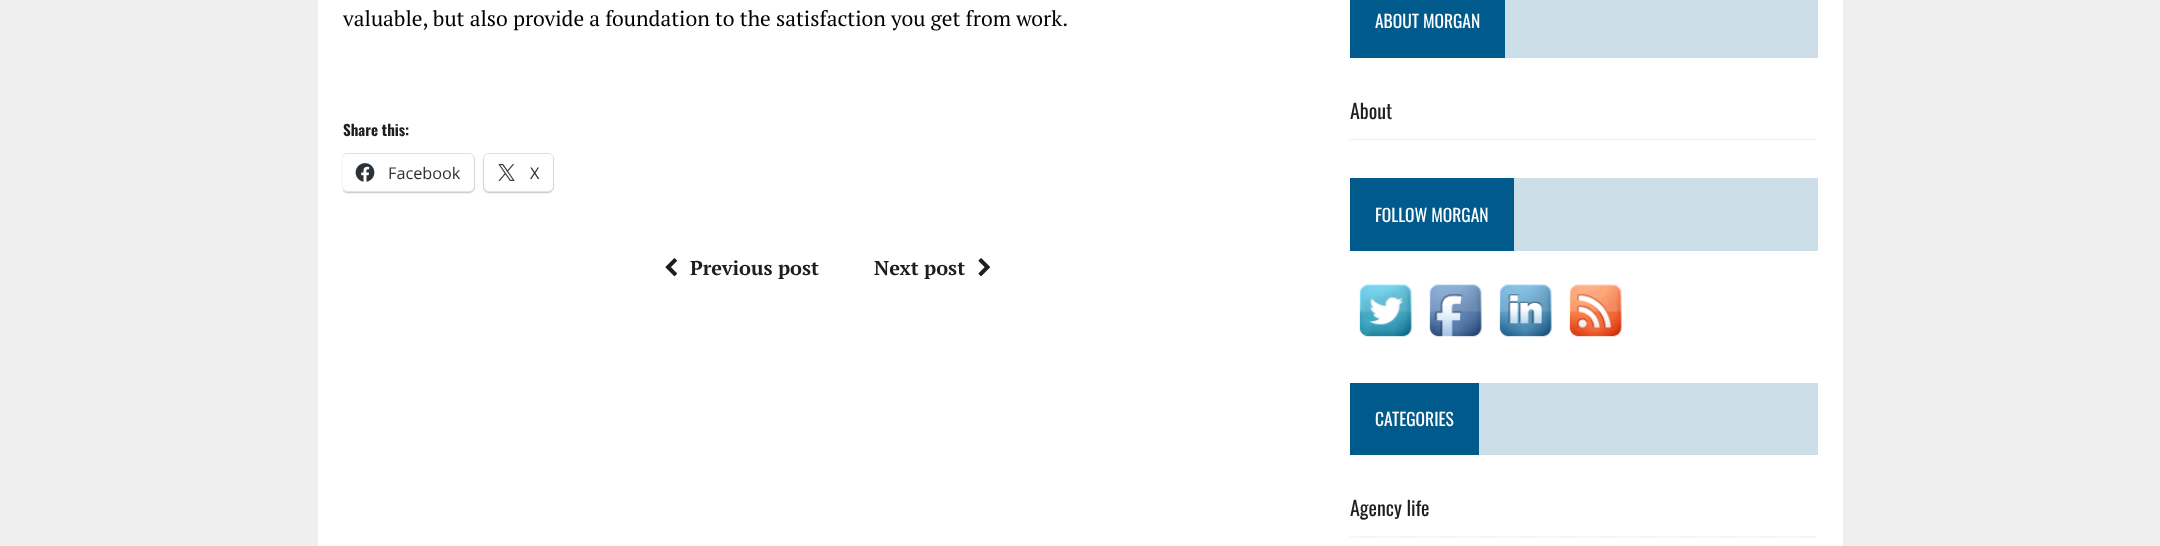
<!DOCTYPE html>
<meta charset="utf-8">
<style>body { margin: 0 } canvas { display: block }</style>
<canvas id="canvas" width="2160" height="546"></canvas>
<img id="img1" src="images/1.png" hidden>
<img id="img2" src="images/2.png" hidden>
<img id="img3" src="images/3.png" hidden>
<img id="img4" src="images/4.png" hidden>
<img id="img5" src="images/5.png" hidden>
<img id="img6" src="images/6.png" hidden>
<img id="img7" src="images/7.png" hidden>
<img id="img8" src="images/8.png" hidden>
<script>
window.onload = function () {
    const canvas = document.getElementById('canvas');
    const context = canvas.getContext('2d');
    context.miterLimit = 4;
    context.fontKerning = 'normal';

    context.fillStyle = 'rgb(239, 239, 239)';
    context.fillRect(0, 0, 2160, 546);
    context.fillStyle = 'rgb(255, 255, 255)';
    context.fillRect(318, 0, 1525, 546);
    context.save();
    context.beginPath();
    context.rect(343, 0, 971, 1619);
    context.clip();
    context.beginPath();
    context.roundRect(341.5, 153.5, 133, 39, 5.5);
    context.strokeStyle = 'rgb(224, 224, 224)';
    context.stroke();
    context.restore();
    context.fillStyle = 'rgba(0, 0, 0, 0.12)';
    context.filter = 'blur(1px)';
    context.beginPath();
    context.roundRect(343, 155, 131, 38, 5);
    context.fill();
    context.filter = 'none';
    context.fillStyle = 'rgb(255, 255, 255)';
    context.beginPath();
    context.roundRect(343, 154, 131, 37, 5);
    context.fill();
    context.drawImage(document.getElementById('img1'), 355, 163, 20, 19);
    context.beginPath();
    context.roundRect(483.5, 153.5, 70, 39, 5.5);
    context.strokeStyle = 'rgb(224, 224, 224)';
    context.stroke();
    context.fillStyle = 'rgba(0, 0, 0, 0.12)';
    context.filter = 'blur(1px)';
    context.beginPath();
    context.roundRect(484, 155, 69, 38, 5);
    context.fill();
    context.filter = 'none';
    context.fillStyle = 'rgb(255, 255, 255)';
    context.beginPath();
    context.roundRect(484, 154, 69, 37, 5);
    context.fill();
    context.drawImage(document.getElementById('img2'), 498, 164, 17, 17);
    context.drawImage(document.getElementById('img3'), 665, 258, 12, 19);
    context.drawImage(document.getElementById('img4'), 978, 258, 12, 19);
    context.fillStyle = 'rgb(204, 222, 232)';
    context.fillRect(1505, 0, 313, 58);
    context.fillStyle = 'rgb(0, 90, 140)';
    context.fillRect(1350, 0, 155, 58);
    context.save();
    context.beginPath();
    context.rect(1350, 0, 468, 140);
    context.clip();
    context.beginPath();
    context.moveTo(1350, 139.5);
    context.lineTo(1817.5, 139.5);
    context.strokeStyle = 'rgb(220, 220, 220)';
    context.lineWidth = 1.2;
    context.setLineDash([1.25, 1.25]);
    context.stroke();
    context.restore();
    context.fillStyle = 'rgb(204, 222, 232)';
    context.fillRect(1514, 178, 304, 73);
    context.fillStyle = 'rgb(0, 90, 140)';
    context.fillRect(1350, 178, 164, 73);
    context.drawImage(document.getElementById('img5'), 1359, 284, 53, 53);
    context.drawImage(document.getElementById('img6'), 1429, 284, 53, 53);
    context.drawImage(document.getElementById('img7'), 1499, 284, 53, 53);
    context.drawImage(document.getElementById('img8'), 1569, 284, 53, 53);
    context.fillStyle = 'rgb(204, 222, 232)';
    context.fillRect(1479, 383, 339, 72);
    context.fillStyle = 'rgb(0, 90, 140)';
    context.fillRect(1350, 383, 129, 72);
    context.beginPath();
    context.moveTo(1350, 537);
    context.lineTo(1817.5, 537);
    context.strokeStyle = 'rgb(220, 220, 220)';
    context.lineWidth = 1.2;
    context.setLineDash([1.25, 1.25]);
    context.stroke();
    context.font = '21.25px PT Serif';
    context.fillStyle = 'rgb(0, 0, 0)';
    context.fillText('valuable, but also provide a foundation to the satisfaction you get from work.', 343, 26);
    context.font = 'bold 15px Oswald';
    context.fillStyle = 'rgb(31, 30, 30)';
    context.fillText('Share this:', 343, 136);
    context.font = '16.25px Open Sans';
    context.fillStyle = 'rgb(44, 51, 56)';
    context.fillText('Facebook', 388, 179);
    context.fillText('X', 530, 179);
    context.font = 'bold 20px PT Serif';
    context.fillStyle = 'rgb(31, 30, 30)';
    context.fillText('Previous post', 690, 275);
    context.fillText('Next post', 874, 275);
    context.font = '17.5px Oswald';
    context.fillStyle = 'rgb(255, 255, 255)';
    context.fillText('ABOUT MORGAN', 1375, 28);
    context.font = '20px Oswald';
    context.fillStyle = 'rgb(31, 30, 30)';
    context.fillText('About', 1350, 119);
    context.font = '17.5px Oswald';
    context.fillStyle = 'rgb(255, 255, 255)';
    context.fillText('FOLLOW MORGAN', 1375, 222);
    context.fillText('CATEGORIES', 1375, 426);
    context.font = '20px Oswald';
    context.fillStyle = 'rgb(31, 30, 30)';
    context.fillText('Agency life', 1350, 516);
};
</script>
